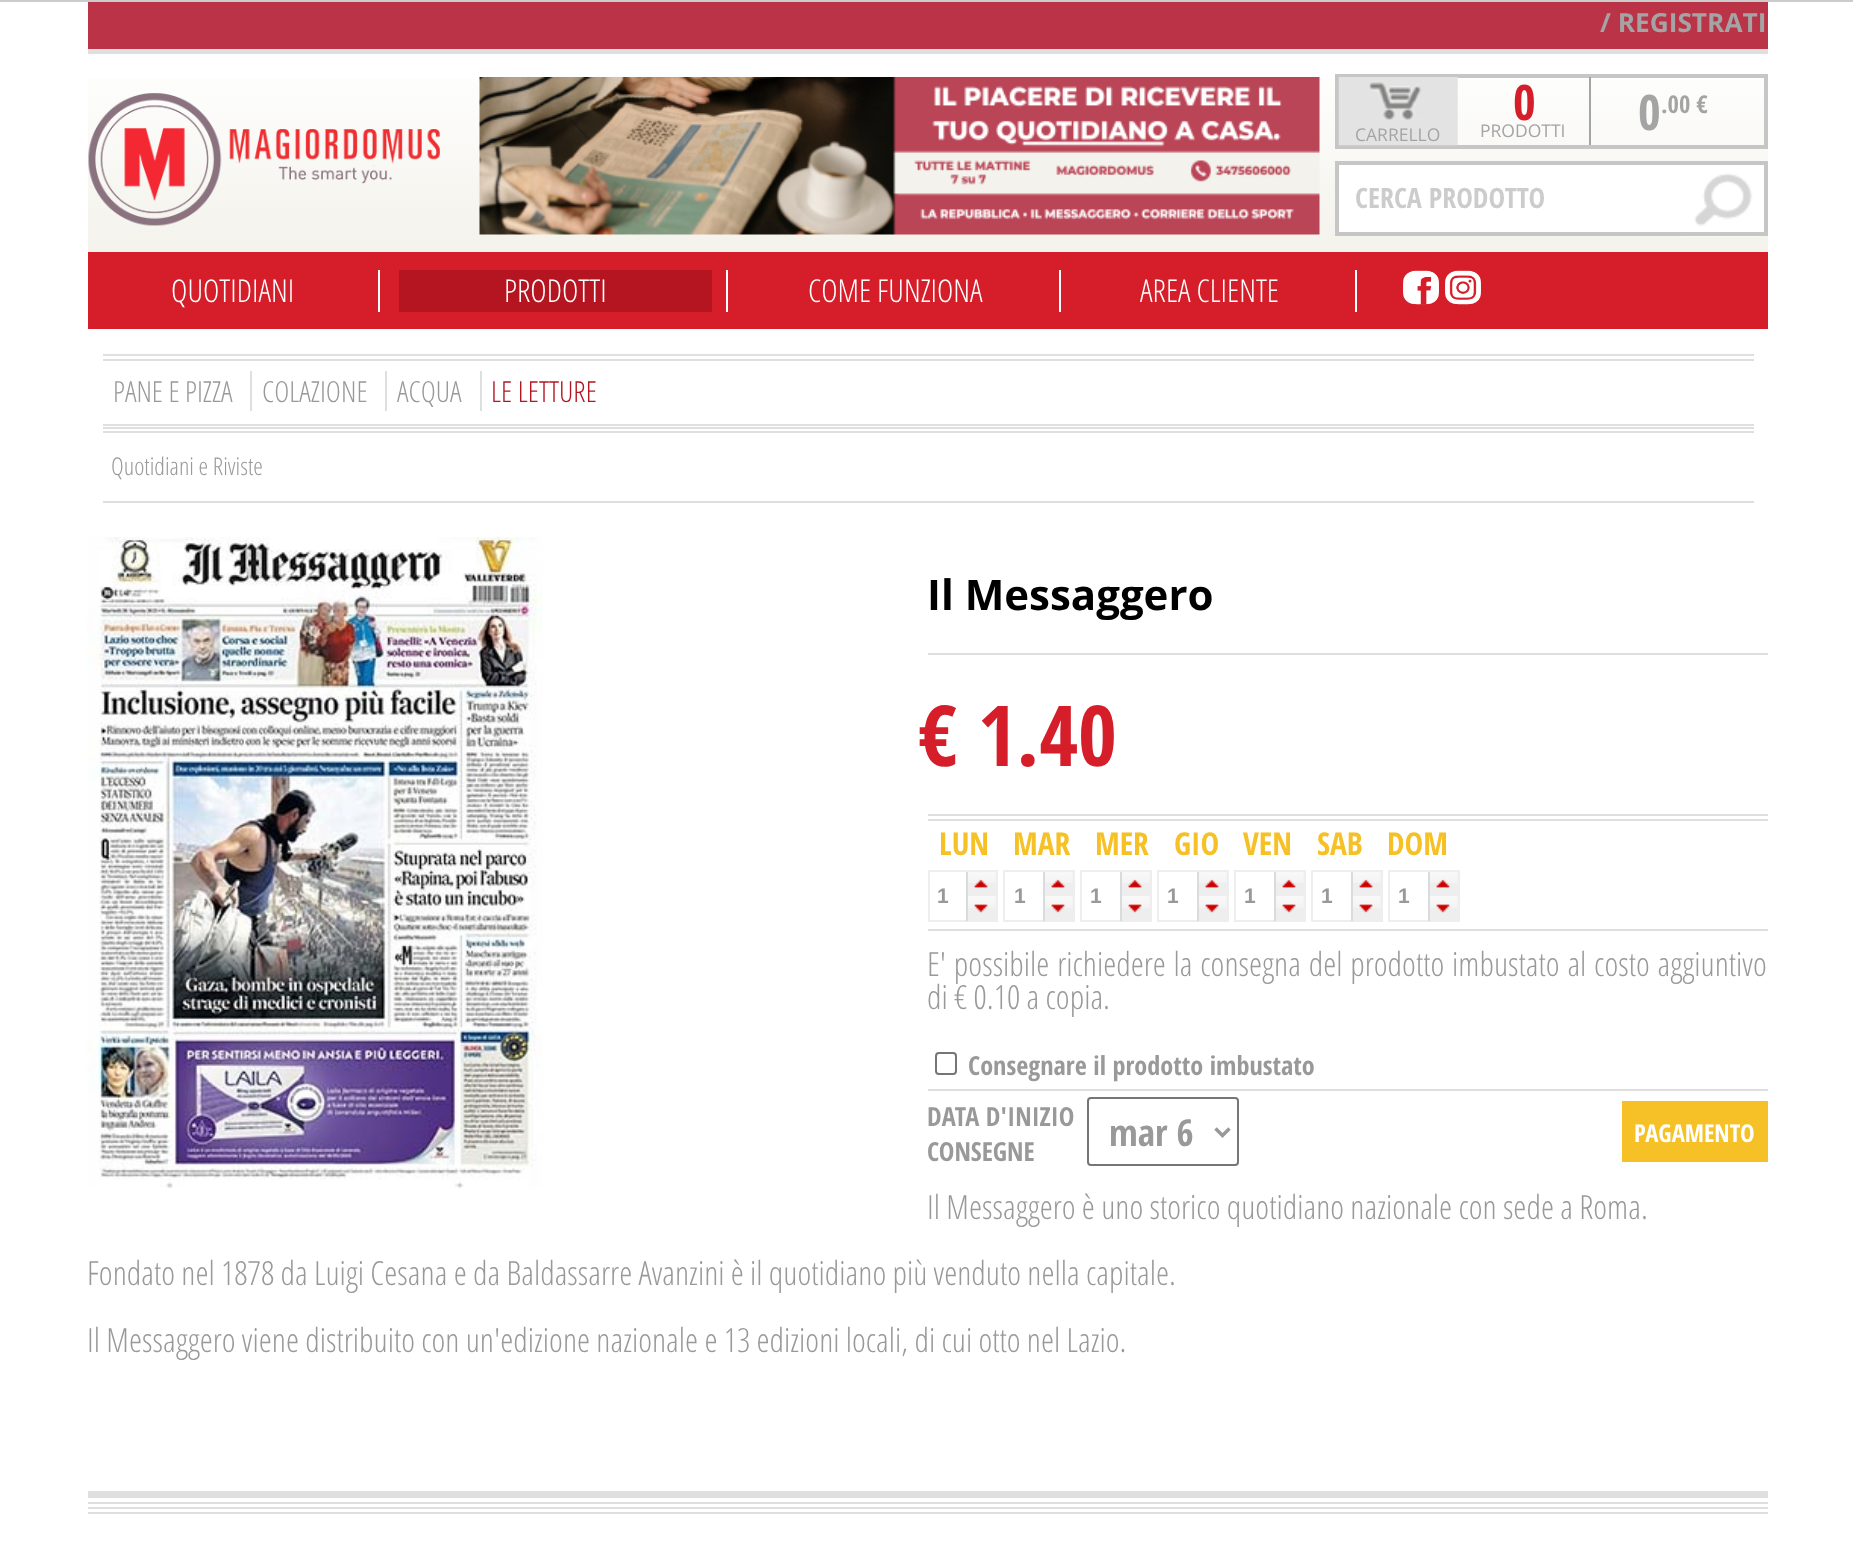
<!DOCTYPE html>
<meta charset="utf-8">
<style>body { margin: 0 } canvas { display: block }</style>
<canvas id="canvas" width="1853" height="1543"></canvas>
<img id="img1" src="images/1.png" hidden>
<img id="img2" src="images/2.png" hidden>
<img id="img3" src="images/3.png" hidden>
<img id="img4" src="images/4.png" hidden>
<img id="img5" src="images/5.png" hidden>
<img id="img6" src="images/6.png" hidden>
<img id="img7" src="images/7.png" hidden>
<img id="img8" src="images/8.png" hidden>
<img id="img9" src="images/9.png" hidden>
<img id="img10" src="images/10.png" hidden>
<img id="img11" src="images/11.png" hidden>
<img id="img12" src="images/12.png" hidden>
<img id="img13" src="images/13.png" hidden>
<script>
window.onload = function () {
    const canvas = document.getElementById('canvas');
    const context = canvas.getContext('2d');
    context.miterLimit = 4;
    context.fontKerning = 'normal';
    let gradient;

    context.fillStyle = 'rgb(255, 255, 255)';
    context.fillRect(0, 0, 1853, 1543);
    context.fillStyle = 'rgb(204, 204, 204)';
    context.fillRect(0, 0, 1853, 2);
    context.fillStyle = 'rgb(186, 51, 71)';
    context.fillRect(88, 2, 1680, 47);
    gradient = context.createLinearGradient(928, 54, 928, 254);
    gradient.addColorStop(0, 'rgb(255, 255, 255)');
    gradient.addColorStop(1, 'rgb(243, 242, 235)');
    context.fillStyle = gradient;
    context.fillRect(88, 79, 1680, 173);
    context.fillStyle = 'rgb(223, 223, 223)';
    context.fillRect(88, 49, 1680, 5);
    context.drawImage(document.getElementById('img1'), 88, 93, 352, 133);
    context.drawImage(document.getElementById('img2'), 479, 77, 841, 158);
    context.strokeStyle = 'rgb(198, 198, 198)';
    context.lineWidth = 4;
    context.strokeRect(1337, 76, 429, 71);
    context.fillStyle = 'rgb(165, 165, 165)';
    context.fillRect(1589, 77, 2, 68);
    context.drawImage(document.getElementById('img3'), 1338, 77, 120, 69);
    context.fillStyle = 'rgb(255, 255, 255)';
    context.fillRect(1339, 165, 425, 67);
    context.drawImage(document.getElementById('img4'), 1682, 173, 82, 64);
    context.strokeRect(1337, 163, 429, 71);
    context.fillStyle = 'rgb(213, 30, 41)';
    context.fillRect(88, 252, 1680, 77);
    context.fillStyle = 'rgb(255, 255, 255)';
    context.fillRect(378, 270, 2, 42);
    context.fillRect(726, 270, 2, 42);
    context.fillStyle = 'rgb(181, 21, 32)';
    context.fillRect(399, 270, 313, 42);
    context.fillStyle = 'rgb(255, 255, 255)';
    context.fillRect(1059, 270, 2, 42);
    context.fillRect(1355, 270, 2, 42);
    context.drawImage(document.getElementById('img5'), 1403, 270, 36, 35);
    context.drawImage(document.getElementById('img6'), 1445, 270, 36, 35);
    context.fillStyle = 'rgb(223, 223, 223)';
    context.fillRect(103, 354, 1651, 2);
    context.fillRect(103, 359, 1651, 2);
    context.fillRect(103, 424, 1651, 2);
    context.fillRect(250, 371, 2, 40);
    context.fillRect(385, 371, 2, 40);
    context.fillRect(480, 371, 2, 40);
    context.fillRect(103, 427, 1651, 2);
    context.fillRect(103, 501, 1651, 2);
    context.fillRect(103, 431, 1651, 2);
    context.drawImage(document.getElementById('img7'), 87, 537, 456, 652);
    context.fillRect(928, 653, 840, 2);
    context.fillRect(928, 814, 840, 2);
    context.fillRect(928, 819, 840, 2);
    context.strokeStyle = 'rgb(238, 238, 238)';
    context.lineWidth = 2;
    context.strokeRect(929, 871, 68, 50);
    context.fillStyle = 'rgb(238, 238, 238)';
    context.fillRect(968, 872, 28, 48);
    context.drawImage(document.getElementById('img8'), 968, 872, 28, 11);
    context.fillStyle = 'rgb(216, 220, 223)';
    context.fillRect(966, 872, 2, 49);
    context.drawImage(document.getElementById('img9'), 974, 879, 14, 9);
    context.drawImage(document.getElementById('img10'), 968, 896, 28, 12);
    context.drawImage(document.getElementById('img11'), 974, 904, 14, 9);
    context.strokeRect(1004, 871, 70, 50);
    context.fillStyle = 'rgb(238, 238, 238)';
    context.fillRect(1045, 872, 28, 48);
    context.drawImage(document.getElementById('img8'), 1045, 872, 28, 11);
    context.fillStyle = 'rgb(216, 220, 223)';
    context.fillRect(1043, 872, 2, 49);
    context.drawImage(document.getElementById('img9'), 1051, 879, 14, 9);
    context.drawImage(document.getElementById('img10'), 1045, 896, 28, 12);
    context.drawImage(document.getElementById('img11'), 1051, 904, 14, 9);
    context.strokeRect(1081, 871, 70, 50);
    context.fillStyle = 'rgb(238, 238, 238)';
    context.fillRect(1122, 872, 28, 48);
    context.drawImage(document.getElementById('img8'), 1122, 872, 28, 11);
    context.fillStyle = 'rgb(216, 220, 223)';
    context.fillRect(1120, 872, 2, 49);
    context.drawImage(document.getElementById('img9'), 1128, 879, 14, 9);
    context.drawImage(document.getElementById('img10'), 1122, 896, 28, 12);
    context.drawImage(document.getElementById('img11'), 1128, 904, 14, 9);
    context.strokeRect(1158, 871, 70, 50);
    context.fillStyle = 'rgb(238, 238, 238)';
    context.fillRect(1199, 872, 28, 48);
    context.drawImage(document.getElementById('img8'), 1199, 872, 28, 11);
    context.fillStyle = 'rgb(216, 220, 223)';
    context.fillRect(1197, 872, 2, 49);
    context.drawImage(document.getElementById('img9'), 1205, 879, 14, 9);
    context.drawImage(document.getElementById('img10'), 1199, 896, 28, 12);
    context.drawImage(document.getElementById('img11'), 1205, 904, 14, 9);
    context.strokeRect(1235, 871, 70, 50);
    context.fillStyle = 'rgb(238, 238, 238)';
    context.fillRect(1276, 872, 28, 48);
    context.drawImage(document.getElementById('img8'), 1276, 872, 28, 11);
    context.fillStyle = 'rgb(216, 220, 223)';
    context.fillRect(1274, 872, 2, 49);
    context.drawImage(document.getElementById('img9'), 1282, 879, 14, 9);
    context.drawImage(document.getElementById('img10'), 1276, 896, 28, 12);
    context.drawImage(document.getElementById('img11'), 1282, 904, 14, 9);
    context.strokeRect(1312, 871, 70, 50);
    context.fillStyle = 'rgb(238, 238, 238)';
    context.fillRect(1353, 872, 28, 48);
    context.drawImage(document.getElementById('img8'), 1353, 872, 28, 11);
    context.fillStyle = 'rgb(216, 220, 223)';
    context.fillRect(1351, 872, 2, 49);
    context.drawImage(document.getElementById('img12'), 1359, 879, 14, 9);
    context.drawImage(document.getElementById('img10'), 1353, 896, 28, 12);
    context.drawImage(document.getElementById('img13'), 1359, 904, 14, 9);
    context.strokeRect(1389, 871, 70, 50);
    context.fillStyle = 'rgb(238, 238, 238)';
    context.fillRect(1430, 872, 28, 48);
    context.drawImage(document.getElementById('img8'), 1430, 872, 28, 11);
    context.fillStyle = 'rgb(216, 220, 223)';
    context.fillRect(1428, 872, 2, 49);
    context.drawImage(document.getElementById('img12'), 1436, 879, 14, 9);
    context.drawImage(document.getElementById('img10'), 1430, 896, 28, 12);
    context.drawImage(document.getElementById('img13'), 1436, 904, 14, 9);
    context.fillStyle = 'rgb(223, 223, 223)';
    context.fillRect(928, 929, 840, 2);
    context.beginPath();
    context.roundRect(936, 1053, 20, 21, 3);
    context.strokeStyle = 'rgb(118, 118, 118)';
    context.stroke();
    context.fillRect(928, 1089, 840, 2);
    context.beginPath();
    context.roundRect(1088, 1098, 150, 67, 3);
    context.stroke();
    context.beginPath();
    context.moveTo(1215.5, 1128.5);
    context.lineTo(1222.5, 1135.5);
    context.lineTo(1229.5, 1128.5);
    context.strokeStyle = 'rgb(153, 153, 153)';
    context.lineWidth = 3.5;
    context.stroke();
    context.fillStyle = 'rgb(246, 193, 38)';
    context.fillRect(1622, 1101, 146, 61);
    context.fillStyle = 'rgb(223, 223, 223)';
    context.fillRect(88, 1491, 1680, 7);
    context.fillRect(88, 1502, 1680, 2);
    context.fillRect(88, 1507, 1680, 2);
    context.fillRect(88, 1512, 1680, 2);
    context.font = 'bold 26.25px Open Sans';
    context.fillStyle = 'rgb(164, 164, 164)';
    context.fillText('/ REGISTRATI', 1600, 32);
    context.font = 'bold 49px Open Sans Condensed';
    context.fillStyle = 'rgb(213, 30, 41)';
    context.fillText('0', 1513, 120);
    context.font = '17.5px Open Sans';
    context.fillStyle = 'rgb(164, 164, 164)';
    context.fillText('PRODOTTI', 1480, 137);
    context.font = 'bold 49px Open Sans Condensed';
    context.fillText('0', 1638, 130);
    context.font = 'bold 24.5px Open Sans Condensed';
    context.fillText('.00 €', 1661, 113);
    context.font = '17.5px Open Sans';
    context.fillText('CARRELLO', 1355, 141);
    context.font = 'bold 28px Open Sans Condensed';
    context.fillStyle = 'rgb(204, 204, 204)';
    context.fillText('CERCA PRODOTTO', 1355, 208);
    context.font = '300 31.5px Open Sans Condensed';
    context.fillStyle = 'rgb(255, 255, 255)';
    context.fillText('QUOTIDIANI', 171, 302);
    context.fillText('PRODOTTI', 504, 302);
    context.fillText('COME FUNZIONA', 808, 302);
    context.fillText('AREA CLIENTE', 1140, 302);
    context.font = '300 29px Open Sans Condensed';
    context.fillStyle = 'rgb(153, 153, 153)';
    context.fillText('PANE E PIZZA', 113, 402);
    context.fillText('COLAZIONE', 262, 402);
    context.fillText('ACQUA', 397, 402);
    context.fillStyle = 'rgb(181, 21, 32)';
    context.fillText('LE LETTURE', 491, 402);
    context.font = '300 24.5px Open Sans Condensed';
    context.fillStyle = 'rgb(153, 153, 153)';
    context.fillText('Quotidiani e Riviste', 111, 475);
    context.font = 'bold 42px Open Sans';
    context.fillStyle = 'rgb(0, 0, 0)';
    context.fillText('Il Messaggero', 927, 610);
    context.font = 'bold 84px Open Sans Condensed';
    context.fillStyle = 'rgb(213, 30, 41)';
    context.fillText('€ 1.40', 918, 766);
    context.font = 'bold 31.5px Open Sans Condensed';
    context.fillStyle = 'rgb(246, 193, 38)';
    context.fillText('LUN', 939, 855);
    context.fillText('MAR', 1013, 855);
    context.fillText('MER', 1095, 855);
    context.fillText('GIO', 1174, 855);
    context.fillText('VEN', 1243, 855);
    context.fillText('SAB', 1317, 855);
    context.fillText('DOM', 1387, 855);
    context.font = 'bold 21px Liberation Sans';
    context.fillStyle = 'rgb(153, 153, 153)';
    context.fillText('1', 937, 903);
    context.fillText('1', 1014, 903);
    context.fillText('1', 1090, 903);
    context.fillText('1', 1167, 903);
    context.fillText('1', 1244, 903);
    context.fillText('1', 1321, 903);
    context.fillText('1', 1398, 903);
    context.wordSpacing = '1.5px';
    context.font = '300 33.25px Open Sans Condensed';
    context.fillText('E\' possibile richiedere la consegna del prodotto imbustato al costo aggiuntivo', 927, 976);
    context.wordSpacing = '0px';
    context.fillText('di € 0.10 a copia.', 927, 1009);
    context.font = 'bold 26.25px Open Sans Condensed';
    context.fillText('Consegnare il prodotto imbustato', 968, 1075);
    context.fillText('DATA D\'INIZIO', 927, 1126);
    context.fillText('CONSEGNE', 927, 1161);
    context.font = 'bold 37px Open Sans Condensed';
    context.fillText('mar 6', 1109, 1146);
    context.font = 'bold 24.5px Open Sans Condensed';
    context.fillStyle = 'rgb(255, 255, 255)';
    context.fillText('PAGAMENTO', 1634, 1142);
    context.font = '300 33.25px Open Sans Condensed';
    context.fillStyle = 'rgb(153, 153, 153)';
    context.fillText('Il Messaggero è uno storico quotidiano nazionale con sede a Roma.', 927, 1219);
    context.fillText('Fondato nel 1878 da Luigi Cesana e da Baldassarre Avanzini è il quotidiano più venduto nella capitale.', 87, 1285);
    context.fillText('Il Messaggero viene distribuito con un\'edizione nazionale e 13 edizioni locali, di cui otto nel Lazio.', 87, 1352);
};
</script>
